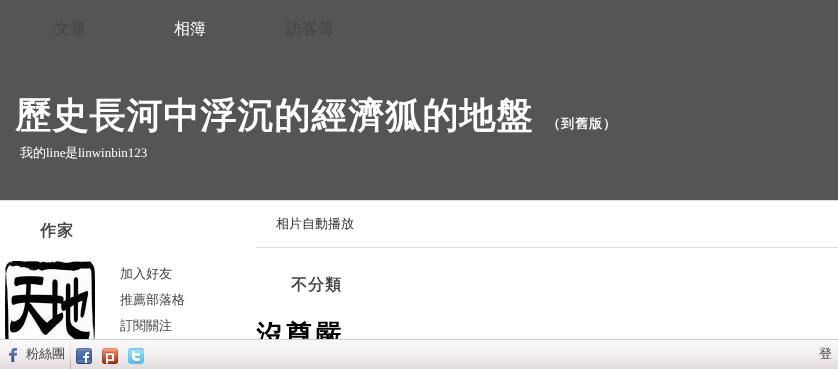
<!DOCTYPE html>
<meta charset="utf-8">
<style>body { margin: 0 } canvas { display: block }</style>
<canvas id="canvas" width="838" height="369"></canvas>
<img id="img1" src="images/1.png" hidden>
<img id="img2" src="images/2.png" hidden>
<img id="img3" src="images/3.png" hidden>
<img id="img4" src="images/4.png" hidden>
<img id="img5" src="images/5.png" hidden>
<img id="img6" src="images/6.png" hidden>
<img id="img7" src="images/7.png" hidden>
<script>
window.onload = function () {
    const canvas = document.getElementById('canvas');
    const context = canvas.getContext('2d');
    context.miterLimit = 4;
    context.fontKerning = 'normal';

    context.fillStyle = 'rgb(85, 85, 85)';
    context.fillRect(0, 0, 838, 369);
    context.fillStyle = 'rgb(221, 221, 221)';
    context.fillRect(0, 200, 838, 1);
    context.fillStyle = 'rgb(255, 255, 255)';
    context.fillRect(0, 201, 838, 138);
    context.drawImage(document.getElementById('img1'), 5, 261, 90, 78);
    context.fillStyle = 'rgb(221, 221, 221)';
    context.fillRect(256, 247, 582, 1);
    context.font = '500 16px WenQuanYi Zen Hei';
    context.fillStyle = 'rgb(68, 68, 68)';
    context.fillText('文章', 54, 34);
    context.fillStyle = 'rgb(255, 255, 255)';
    context.fillText('相簿', 174, 34);
    context.fillStyle = 'rgb(68, 68, 68)';
    context.fillText('訪客簿', 286, 34);
    context.letterSpacing = '1px';
    context.font = 'bold 36px WenQuanYi Zen Hei';
    context.fillStyle = 'rgb(255, 255, 255)';
    context.fillText('歷史長河中浮沉的經濟狐的地盤', 15, 128);
    context.font = 'bold 13px WenQuanYi Zen Hei';
    context.fillText('（到舊版）', 547, 128);
    context.letterSpacing = '0px';
    context.font = '500 13px WenQuanYi Zen Hei';
    context.fillText('我的', 20, 157);
    context.font = '13px Liberation Serif';
    context.fillText('line', 46, 157);
    context.font = '500 13px WenQuanYi Zen Hei';
    context.fillText('是', 65, 157);
    context.font = '13px Liberation Serif';
    context.fillText('linwinbin123', 78, 157);
    context.letterSpacing = '1px';
    context.font = 'bold 16px WenQuanYi Zen Hei';
    context.fillStyle = 'rgb(68, 68, 68)';
    context.fillText('作家', 40, 236);
    context.letterSpacing = '0px';
    context.font = '500 13px WenQuanYi Zen Hei';
    context.fillText('加入好友', 120, 278);
    context.fillText('推薦部落格', 120, 304);
    context.fillText('訂閱關注', 120, 330);
    context.fillStyle = 'rgb(51, 51, 51)';
    context.fillText('相片自動播放', 276, 228);
    context.letterSpacing = '1px';
    context.font = 'bold 16px WenQuanYi Zen Hei';
    context.fillStyle = 'rgb(68, 68, 68)';
    context.fillText('不分類', 291, 290);
    context.font = 'bold 28px WenQuanYi Zen Hei';
    context.fillStyle = 'rgb(0, 0, 0)';
    context.fillText('沒尊嚴', 256, 345);
    context.drawImage(document.getElementById('img2'), 0, 339, 838, 30);
    context.drawImage(document.getElementById('img3'), 9, 348, 8, 14);
    context.letterSpacing = '0px';
    context.font = '500 13px WenQuanYi Zen Hei';
    context.fillStyle = 'rgb(68, 68, 68)';
    context.fillText('粉絲團', 26, 358);
    context.drawImage(document.getElementById('img4'), 70, 341, 1, 28);
    context.drawImage(document.getElementById('img5'), 76, 348, 16, 16);
    context.drawImage(document.getElementById('img6'), 102, 348, 16, 16);
    context.drawImage(document.getElementById('img7'), 128, 348, 16, 16);
    context.fillText('登', 819, 358);
};
</script>
